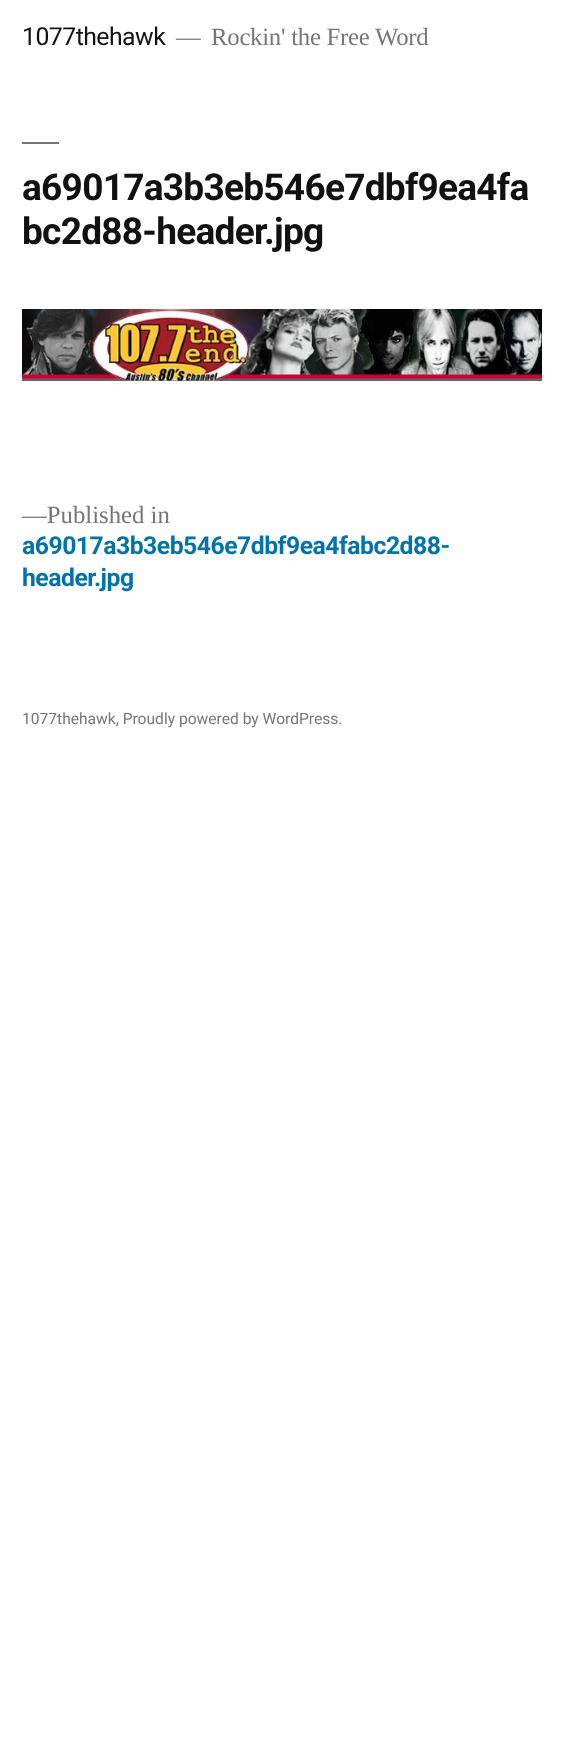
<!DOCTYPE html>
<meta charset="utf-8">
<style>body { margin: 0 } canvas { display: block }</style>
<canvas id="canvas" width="564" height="1741"></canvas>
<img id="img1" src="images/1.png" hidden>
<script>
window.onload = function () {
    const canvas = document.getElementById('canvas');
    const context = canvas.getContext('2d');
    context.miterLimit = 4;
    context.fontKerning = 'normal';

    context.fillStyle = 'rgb(255, 255, 255)';
    context.fillRect(0, 0, 564, 1741);
    context.fillStyle = 'rgb(118, 118, 118)';
    context.fillRect(22, 142, 37, 2);
    context.drawImage(document.getElementById('img1'), 22, 309, 520, 72);
    context.letterSpacing = '-0.5px';
    context.font = '24.75px Roboto';
    context.fillStyle = 'rgb(17, 17, 17)';
    context.fillText('1077thehawk', 22, 45);
    context.letterSpacing = '-0.25px';
    context.font = '24.75px Liberation Serif';
    context.fillStyle = 'rgb(118, 118, 118)';
    context.fillText('—', 176, 45);
    context.fillText('Rockin\' the Free Word', 211, 45);
    context.letterSpacing = '-0.75px';
    context.font = 'bold 37.1px Roboto';
    context.fillStyle = 'rgb(17, 17, 17)';
    context.fillText('a69017a3b3eb546e7dbf9ea4fa', 22, 200);
    context.fillText('bc2d88-header.jpg', 22, 244);
    context.letterSpacing = '0px';
    context.font = '24.75px Liberation Serif';
    context.fillStyle = 'rgb(118, 118, 118)';
    context.fillText('—Published in', 22, 523);
    context.letterSpacing = '-0.5px';
    context.font = 'bold 24.75px Roboto';
    context.fillStyle = 'rgb(0, 115, 170)';
    context.fillText('a69017a3b3eb546e7dbf9ea4fabc2d88-', 22, 554);
    context.fillText('header.jpg', 22, 586);
    context.letterSpacing = '0px';
    context.font = '15.6px Roboto';
    context.fillStyle = 'rgb(118, 118, 118)';
    context.fillText('1077thehawk, Proudly powered by WordPress.', 22, 724);
};
</script>
